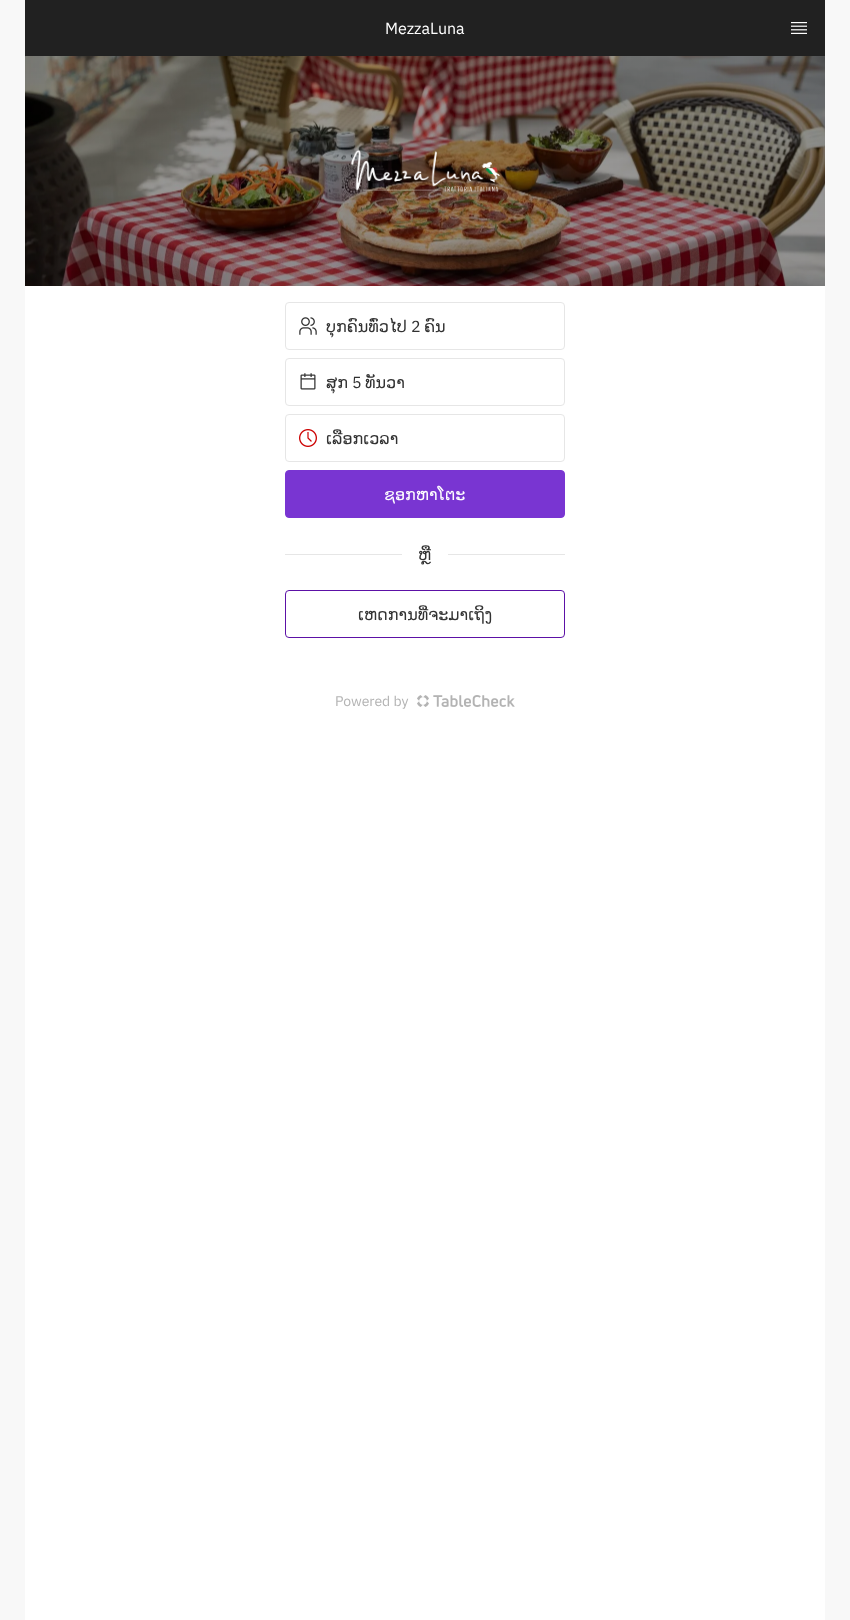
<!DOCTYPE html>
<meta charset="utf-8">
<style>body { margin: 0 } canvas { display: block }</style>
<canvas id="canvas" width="850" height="1620"></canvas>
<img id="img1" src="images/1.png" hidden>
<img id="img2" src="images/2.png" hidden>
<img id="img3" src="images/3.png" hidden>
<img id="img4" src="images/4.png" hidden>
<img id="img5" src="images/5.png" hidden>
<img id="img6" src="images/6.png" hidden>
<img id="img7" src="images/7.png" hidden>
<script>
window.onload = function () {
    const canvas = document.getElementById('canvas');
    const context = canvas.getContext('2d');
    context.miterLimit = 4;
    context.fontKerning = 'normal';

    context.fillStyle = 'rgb(248, 248, 248)';
    context.fillRect(0, 0, 850, 1620);
    context.fillStyle = 'rgb(255, 255, 255)';
    context.fillRect(25, 286, 800, 1334);
    context.fillStyle = 'rgb(33, 33, 33)';
    context.fillRect(25, 0, 800, 56);
    context.drawImage(document.getElementById('img1'), 791, 22, 16, 12);
    context.drawImage(document.getElementById('img2'), 25, 56, 800, 230);
    context.drawImage(document.getElementById('img3'), 351, 149, 149, 43);
    context.beginPath();
    context.roundRect(285.5, 302.5, 279, 47, 3.5);
    context.strokeStyle = 'rgb(230, 230, 230)';
    context.stroke();
    context.drawImage(document.getElementById('img4'), 299, 317, 18, 18);
    context.beginPath();
    context.roundRect(285.5, 358.5, 279, 47, 3.5);
    context.stroke();
    context.drawImage(document.getElementById('img5'), 300, 373, 16, 17);
    context.beginPath();
    context.roundRect(285.5, 414.5, 279, 47, 3.5);
    context.stroke();
    context.drawImage(document.getElementById('img6'), 299, 429, 18, 18);
    context.fillStyle = 'rgb(121, 53, 210)';
    context.beginPath();
    context.roundRect(285.5, 470.5, 279, 47, 3.5);
    context.fill();
    context.strokeStyle = 'rgb(121, 53, 210)';
    context.stroke();
    context.fillStyle = 'rgb(230, 230, 230)';
    context.fillRect(285, 554, 117, 1);
    context.fillRect(448, 554, 117, 1);
    context.beginPath();
    context.roundRect(285.5, 590.5, 279, 47, 3.5);
    context.strokeStyle = 'rgb(92, 17, 166)';
    context.stroke();
    context.drawImage(document.getElementById('img7'), 417, 695, 98, 12);
    context.font = '16px IBM Plex Sans';
    context.fillStyle = 'rgb(255, 255, 255)';
    context.fillText('MezzaLuna', 385, 34);
    context.font = '16px DejaVu Sans';
    context.fillStyle = 'rgb(50, 50, 50)';
    context.fillText('ບຸກຄົນທົ່ວໄປ', 326, 332);
    context.font = '16px IBM Plex Sans';
    context.fillText('2', 411, 332);
    context.font = '16px DejaVu Sans';
    context.fillText('ຄົນ', 424, 332);
    context.fillText('ສຸກ', 326, 388);
    context.font = '16px IBM Plex Sans';
    context.fillText('5', 352, 388);
    context.font = '16px DejaVu Sans';
    context.fillText('ທັນວາ', 365, 388);
    context.fillText('ເລືອກເວລາ', 326, 444);
    context.fillStyle = 'rgb(255, 255, 255)';
    context.fillText('ຊອກຫາໂຕະ', 384, 500);
    context.fillStyle = 'rgb(50, 50, 50)';
    context.fillText('ຫຼື', 418, 560);
    context.fillText('ເຫດການທີ່ຈະມາເຖິງ', 358, 620);
    context.font = '14px IBM Plex Sans';
    context.fillStyle = 'rgb(179, 179, 179)';
    context.fillText('Powered by', 335, 706);
};
</script>
